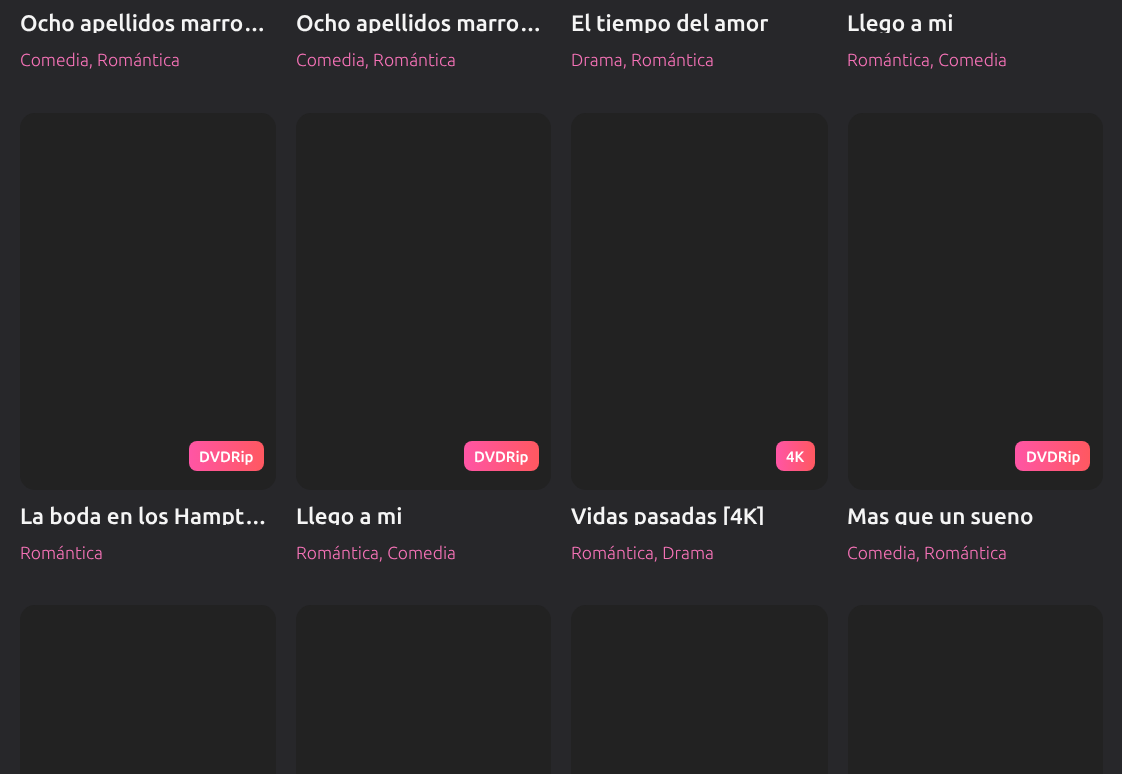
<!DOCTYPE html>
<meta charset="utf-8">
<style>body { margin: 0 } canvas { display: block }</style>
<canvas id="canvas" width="1122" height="774"></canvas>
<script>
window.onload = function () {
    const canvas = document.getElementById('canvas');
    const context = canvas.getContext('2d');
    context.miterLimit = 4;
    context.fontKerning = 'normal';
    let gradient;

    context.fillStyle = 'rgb(39, 39, 42)';
    context.fillRect(0, 0, 1122, 774);
    context.fillStyle = 'rgb(34, 34, 34)';
    context.beginPath();
    context.roundRect(20, 113, 256, 377, 15);
    context.fill();
    gradient = context.createLinearGradient(189, 456, 264, 456);
    gradient.addColorStop(0, 'rgb(255, 85, 165)');
    gradient.addColorStop(1, 'rgb(255, 88, 96)');
    context.fillStyle = gradient;
    context.beginPath();
    context.roundRect(189, 441, 75, 30, 8);
    context.fill();
    context.fillStyle = 'rgb(34, 34, 34)';
    context.beginPath();
    context.roundRect(296, 113, 255, 377, 15);
    context.fill();
    gradient = context.createLinearGradient(464, 456, 539, 456);
    gradient.addColorStop(0, 'rgb(255, 85, 165)');
    gradient.addColorStop(1, 'rgb(255, 88, 96)');
    context.fillStyle = gradient;
    context.beginPath();
    context.roundRect(464, 441, 75, 30, 8);
    context.fill();
    context.fillStyle = 'rgb(34, 34, 34)';
    context.beginPath();
    context.roundRect(571, 113, 257, 377, 15);
    context.fill();
    gradient = context.createLinearGradient(776, 456, 815, 456);
    gradient.addColorStop(0, 'rgb(255, 85, 165)');
    gradient.addColorStop(1, 'rgb(255, 88, 96)');
    context.fillStyle = gradient;
    context.beginPath();
    context.roundRect(776, 441, 39, 30, 8);
    context.fill();
    context.fillStyle = 'rgb(34, 34, 34)';
    context.beginPath();
    context.roundRect(848, 113, 255, 377, 15);
    context.fill();
    gradient = context.createLinearGradient(1015, 456, 1090, 456);
    gradient.addColorStop(0, 'rgb(255, 85, 165)');
    gradient.addColorStop(1, 'rgb(255, 88, 96)');
    context.fillStyle = gradient;
    context.beginPath();
    context.roundRect(1015, 441, 75, 30, 8);
    context.fill();
    context.fillStyle = 'rgb(34, 34, 34)';
    context.beginPath();
    context.roundRect(20, 605, 256, 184, 15);
    context.fill();
    context.beginPath();
    context.roundRect(296, 605, 255, 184, 15);
    context.fill();
    context.beginPath();
    context.roundRect(571, 605, 257, 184, 15);
    context.fill();
    context.beginPath();
    context.roundRect(848, 605, 255, 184, 15);
    context.fill();
    context.save();
    context.beginPath();
    context.rect(20, 13, 256, 20);
    context.clip();
    context.font = '500 22.5px Ubuntu';
    context.fillStyle = 'rgb(245, 245, 245)';
    context.fillText('Ocho apellidos marro…', 20, 31);
    context.restore();
    context.font = '300 17.5px Ubuntu';
    context.fillStyle = 'rgb(244, 114, 182)';
    context.fillText('Comedia, Romántica', 20, 66);
    context.save();
    context.beginPath();
    context.rect(296, 13, 255, 20);
    context.clip();
    context.font = '500 22.5px Ubuntu';
    context.fillStyle = 'rgb(245, 245, 245)';
    context.fillText('Ocho apellidos marro…', 296, 31);
    context.restore();
    context.fillText('Comedia, Romántica', 296, 66);
    context.save();
    context.beginPath();
    context.rect(571, 13, 257, 20);
    context.clip();
    context.font = '500 22.5px Ubuntu';
    context.fillStyle = 'rgb(245, 245, 245)';
    context.fillText('El tiempo del amor', 571, 31);
    context.restore();
    context.fillText('Drama, Romántica', 571, 66);
    context.save();
    context.beginPath();
    context.rect(848, 13, 255, 20);
    context.clip();
    context.font = '500 22.5px Ubuntu';
    context.fillStyle = 'rgb(245, 245, 245)';
    context.fillText('Llego a mi', 847, 31);
    context.restore();
    context.fillText('Romántica, Comedia', 847, 66);
    context.font = '500 15px Ubuntu';
    context.fillStyle = 'rgb(255, 255, 255)';
    context.fillText('DVDRip', 199, 462);
    context.save();
    context.beginPath();
    context.rect(20, 505, 256, 20);
    context.clip();
    context.font = '500 22.5px Ubuntu';
    context.fillStyle = 'rgb(245, 245, 245)';
    context.fillText('La boda en los Hampt…', 20, 524);
    context.restore();
    context.font = '300 17.5px Ubuntu';
    context.fillStyle = 'rgb(244, 114, 182)';
    context.fillText('Romántica', 20, 559);
    context.font = '500 15px Ubuntu';
    context.fillStyle = 'rgb(255, 255, 255)';
    context.fillText('DVDRip', 474, 462);
    context.save();
    context.beginPath();
    context.rect(296, 505, 255, 20);
    context.clip();
    context.font = '500 22.5px Ubuntu';
    context.fillStyle = 'rgb(245, 245, 245)';
    context.fillText('Llego a mi', 296, 524);
    context.restore();
    context.font = '300 17.5px Ubuntu';
    context.fillStyle = 'rgb(244, 114, 182)';
    context.fillText('Romántica, Comedia', 296, 559);
    context.font = '500 15px Ubuntu';
    context.fillStyle = 'rgb(255, 255, 255)';
    context.fillText('4K', 786, 462);
    context.save();
    context.beginPath();
    context.rect(571, 505, 257, 20);
    context.clip();
    context.font = '500 22.5px Ubuntu';
    context.fillStyle = 'rgb(245, 245, 245)';
    context.fillText('Vidas pasadas [4K]', 571, 524);
    context.restore();
    context.font = '300 17.5px Ubuntu';
    context.fillStyle = 'rgb(244, 114, 182)';
    context.fillText('Romántica, Drama', 571, 559);
    context.font = '500 15px Ubuntu';
    context.fillStyle = 'rgb(255, 255, 255)';
    context.fillText('DVDRip', 1026, 462);
    context.save();
    context.beginPath();
    context.rect(848, 505, 255, 20);
    context.clip();
    context.font = '500 22.5px Ubuntu';
    context.fillStyle = 'rgb(245, 245, 245)';
    context.fillText('Mas que un sueno', 847, 524);
    context.restore();
    context.font = '300 17.5px Ubuntu';
    context.fillStyle = 'rgb(244, 114, 182)';
    context.fillText('Comedia, Romántica', 847, 559);
};
</script>
